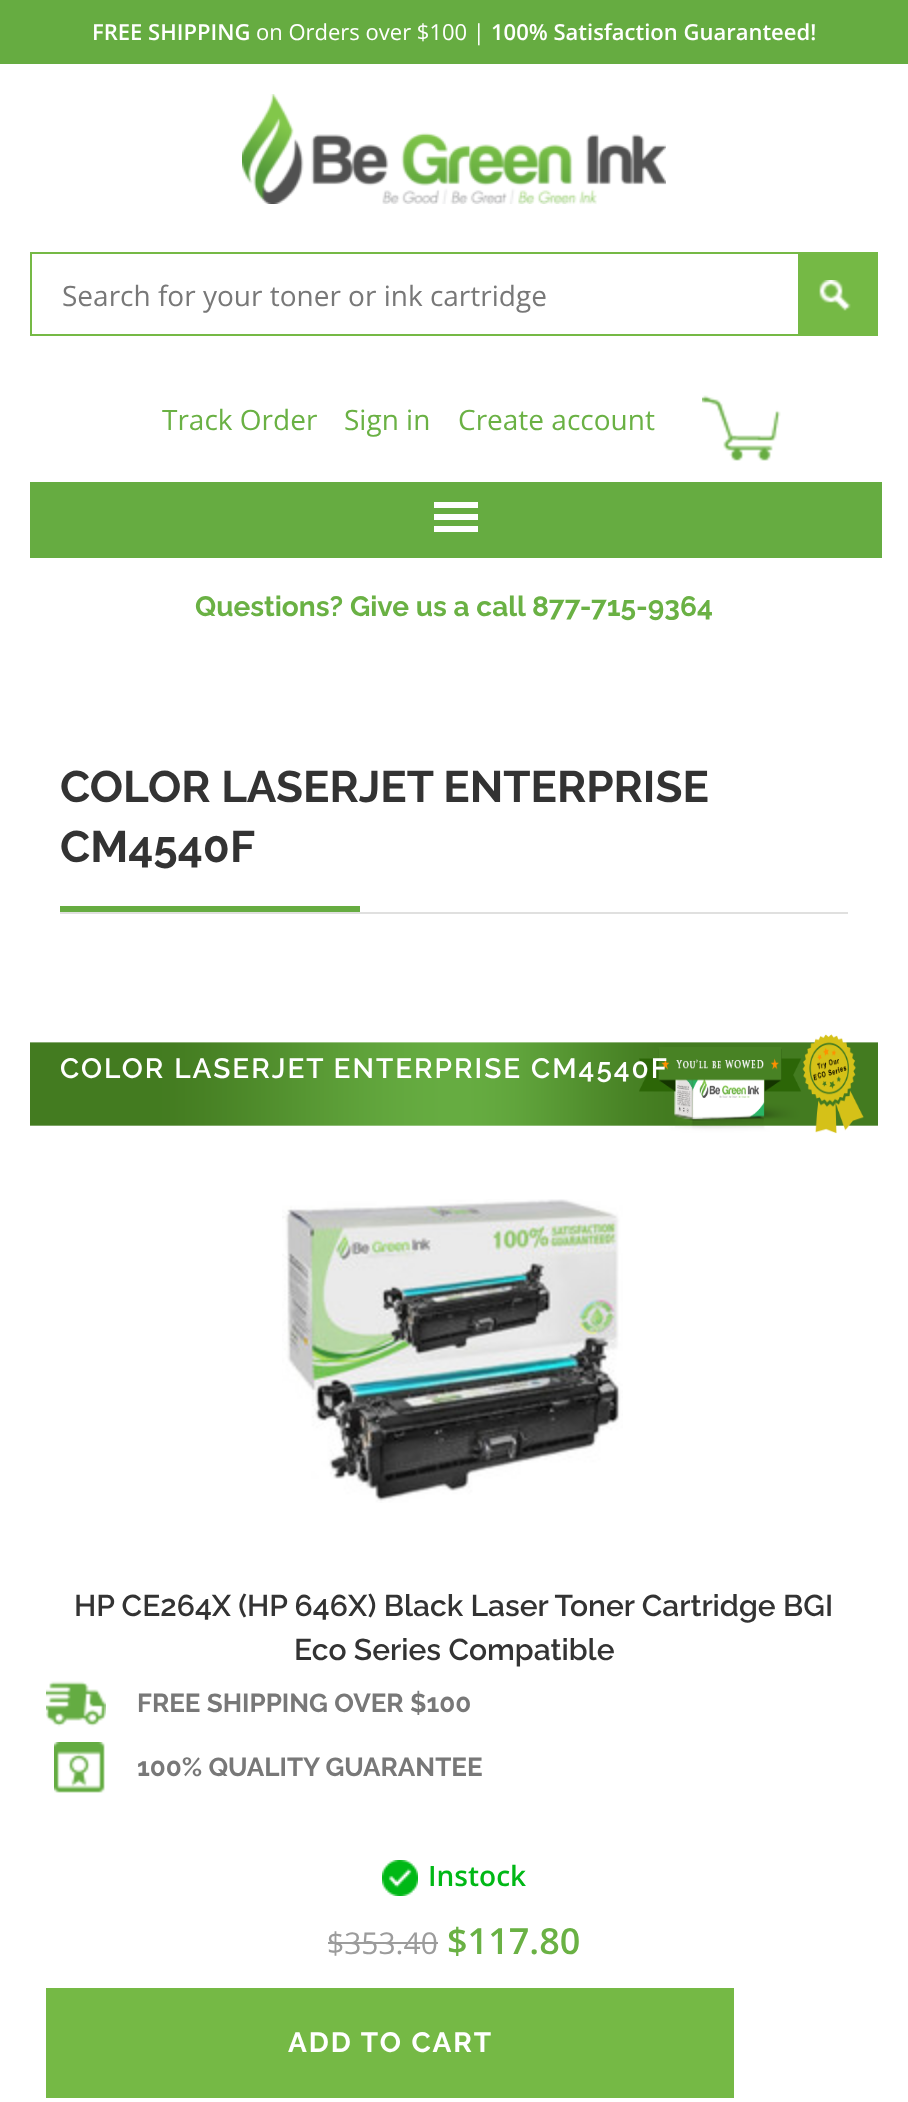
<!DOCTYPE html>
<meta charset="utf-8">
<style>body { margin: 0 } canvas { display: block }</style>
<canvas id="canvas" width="908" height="2102"></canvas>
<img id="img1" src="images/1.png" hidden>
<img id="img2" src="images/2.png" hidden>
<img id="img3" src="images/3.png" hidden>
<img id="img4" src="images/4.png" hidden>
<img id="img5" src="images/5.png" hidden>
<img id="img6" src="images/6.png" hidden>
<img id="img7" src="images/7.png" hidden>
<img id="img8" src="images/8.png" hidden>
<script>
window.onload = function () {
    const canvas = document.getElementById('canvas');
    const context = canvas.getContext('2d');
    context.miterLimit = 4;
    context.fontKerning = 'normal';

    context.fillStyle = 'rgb(255, 255, 255)';
    context.fillRect(0, 0, 908, 2102);
    context.fillStyle = 'rgb(102, 172, 65)';
    context.fillRect(0, 0, 908, 64);
    context.drawImage(document.getElementById('img1'), 242, 94, 424, 110);
    context.strokeStyle = 'rgb(117, 185, 69)';
    context.lineWidth = 2;
    context.strokeRect(31, 253, 846, 82);
    context.fillStyle = 'rgb(117, 185, 69)';
    context.fillRect(798, 254, 78, 80);
    context.drawImage(document.getElementById('img2'), 819, 280, 32, 31);
    context.drawImage(document.getElementById('img3'), 702, 395, 79, 66);
    context.fillStyle = 'rgb(102, 172, 65)';
    context.fillRect(30, 482, 852, 76);
    context.fillStyle = 'rgb(255, 255, 255)';
    context.fillRect(434, 502, 44, 6);
    context.fillRect(434, 514, 44, 6);
    context.fillRect(434, 526, 44, 6);
    context.fillStyle = 'rgb(224, 224, 223)';
    context.fillRect(60, 912, 788, 2);
    context.fillStyle = 'rgb(102, 172, 65)';
    context.fillRect(60, 906, 300, 6);
    context.drawImage(document.getElementById('img4'), 30, 1034, 848, 100);
    context.drawImage(document.getElementById('img5'), 282, 1199, 341, 304);
    context.drawImage(document.getElementById('img6'), 46, 1681, 60, 46);
    context.drawImage(document.getElementById('img7'), 54, 1742, 51, 51);
    context.drawImage(document.getElementById('img8'), 382, 1860, 36, 36);
    context.fillStyle = 'rgb(156, 156, 156)';
    context.fillRect(328, 1942, 110, 2);
    context.fillStyle = 'rgb(117, 185, 69)';
    context.fillRect(46, 1988, 688, 110);
    context.font = '600 22px Open Sans';
    context.fillStyle = 'rgb(255, 255, 255)';
    context.fillText('FREE SHIPPING', 92, 40);
    context.font = '22px Open Sans';
    context.fillText('on Orders over $100 |', 256, 40);
    context.font = '600 22px Open Sans';
    context.fillText('100% Satisfaction Guaranteed!', 491, 40);
    context.font = '28px Open Sans';
    context.fillStyle = 'rgb(120, 120, 120)';
    context.fillText('Search for your toner or ink cartridge', 62, 306);
    context.fillStyle = 'rgb(106, 177, 68)';
    context.fillText('Track Order', 162, 430);
    context.fillText('Sign in', 344, 430);
    context.fillText('Create account', 458, 430);
    context.font = 'bold 28px Raleway';
    context.fillText('Questions? Give us a call 877-715-9364', 195, 616);
    context.font = 'bold 44px Raleway';
    context.fillStyle = 'rgb(51, 51, 51)';
    context.fillText('COLOR LASERJET ENTERPRISE', 60, 802);
    context.fillText('CM4540F', 60, 862);
    context.letterSpacing = '2px';
    context.font = '600 28px Raleway';
    context.fillStyle = 'rgb(255, 255, 255)';
    context.fillText('COLOR LASERJET ENTERPRISE CM4540F', 60, 1078);
    context.letterSpacing = '0px';
    context.font = '600 30px Raleway';
    context.fillStyle = 'rgb(51, 51, 51)';
    context.fillText('HP CE264X (HP 646X) Black Laser Toner Cartridge BGI', 74, 1616);
    context.fillText('Eco Series Compatible', 294, 1660);
    context.font = 'bold 26px Raleway';
    context.fillStyle = 'rgb(120, 120, 120)';
    context.fillText('FREE SHIPPING OVER $100', 137, 1712);
    context.fillText('100% QUALITY GUARANTEE', 137, 1776);
    context.font = '600 28px Open Sans';
    context.fillStyle = 'rgb(0, 184, 22)';
    context.fillText('Instock', 428, 1886);
    context.font = '30px Open Sans';
    context.fillStyle = 'rgb(156, 156, 156)';
    context.fillText('$353.40', 327, 1954);
    context.font = '600 36px Open Sans';
    context.fillStyle = 'rgb(106, 177, 68)';
    context.fillText('$117.80', 447, 1954);
    context.letterSpacing = '2px';
    context.font = 'bold 28px Raleway';
    context.fillStyle = 'rgb(255, 255, 255)';
    context.fillText('ADD TO CART', 288, 2052);
};
</script>
